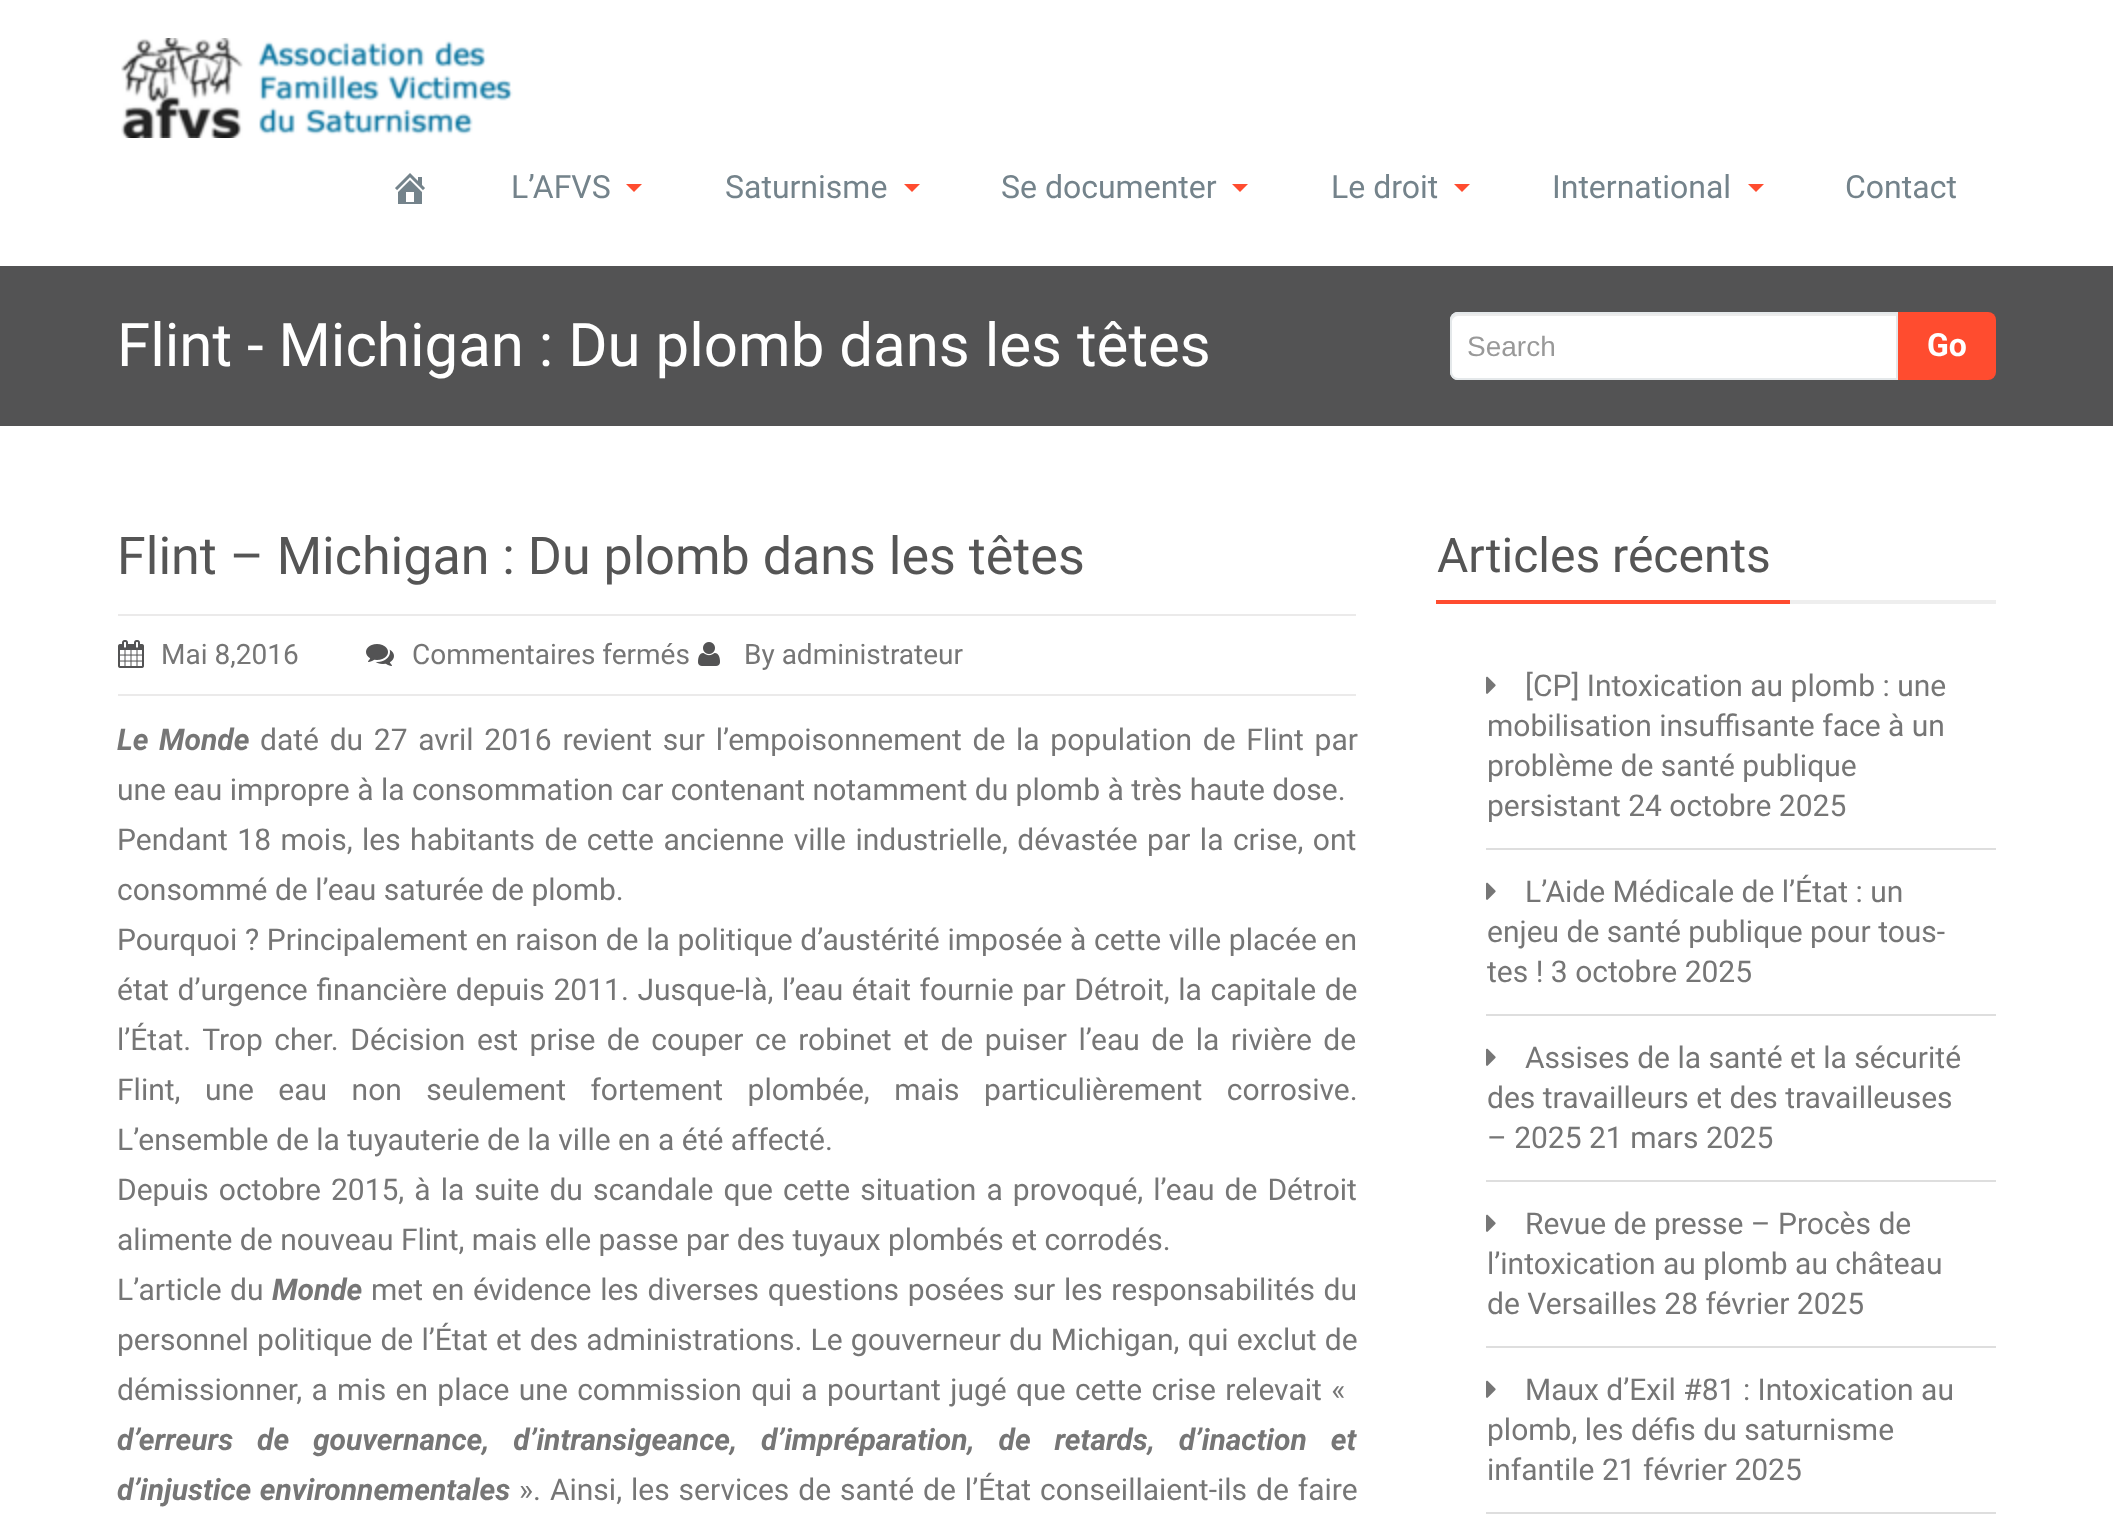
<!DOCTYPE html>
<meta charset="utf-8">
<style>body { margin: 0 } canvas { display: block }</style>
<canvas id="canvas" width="2113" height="1515"></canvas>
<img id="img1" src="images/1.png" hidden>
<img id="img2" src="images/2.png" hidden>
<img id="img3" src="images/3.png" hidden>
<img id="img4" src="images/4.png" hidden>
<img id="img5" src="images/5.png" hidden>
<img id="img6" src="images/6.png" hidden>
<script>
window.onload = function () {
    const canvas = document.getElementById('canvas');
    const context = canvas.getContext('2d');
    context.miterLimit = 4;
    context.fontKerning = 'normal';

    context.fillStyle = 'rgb(255, 255, 255)';
    context.fillRect(0, 0, 2113, 1515);
    context.drawImage(document.getElementById('img1'), 121, 38, 392, 100);
    context.drawImage(document.getElementById('img2'), 395, 173, 30, 31);
    context.fillStyle = 'rgb(255, 76, 47)';
    context.beginPath();
    context.moveTo(626, 184);
    context.lineTo(642, 184);
    context.lineTo(634, 192);
    context.closePath();
    context.fill();
    context.beginPath();
    context.moveTo(904, 184);
    context.lineTo(920, 184);
    context.lineTo(912, 192);
    context.closePath();
    context.fill();
    context.beginPath();
    context.moveTo(1232, 184);
    context.lineTo(1248, 184);
    context.lineTo(1240, 192);
    context.closePath();
    context.fill();
    context.beginPath();
    context.moveTo(1454, 184);
    context.lineTo(1470, 184);
    context.lineTo(1462, 192);
    context.closePath();
    context.fill();
    context.beginPath();
    context.moveTo(1748, 184);
    context.lineTo(1764, 184);
    context.lineTo(1756, 192);
    context.closePath();
    context.fill();
    context.fillStyle = 'rgb(83, 83, 84)';
    context.fillRect(0, 266, 2113, 160);
    context.fillStyle = 'rgb(255, 255, 255)';
    context.beginPath();
    context.roundRect(1450, 312, 448, 68, [8, 0, 0, 8]);
    context.fill();
    context.fillStyle = 'rgb(236, 236, 236)';
    context.beginPath();
    context.moveTo(1458, 316);
    context.lineTo(1896, 316);
    context.lineTo(1896, 314);
    context.lineTo(1458, 314);
    context.bezierCurveTo(1453, 314, 1452, 318, 1452, 322);
    context.bezierCurveTo(1452, 319, 1455, 316, 1458, 316);
    context.closePath();
    context.fill();
    context.beginPath();
    context.roundRect(1451, 313, 446, 66, [7, 0, 0, 7]);
    context.strokeStyle = 'rgb(228, 232, 234)';
    context.lineWidth = 2;
    context.stroke();
    context.fillStyle = 'rgb(255, 76, 47)';
    context.beginPath();
    context.roundRect(1898, 312, 98, 68, [0, 8, 8, 0]);
    context.fill();
    context.fillStyle = 'rgb(235, 234, 234)';
    context.fillRect(118, 614, 1238, 2);
    context.fillRect(118, 694, 1238, 2);
    context.drawImage(document.getElementById('img3'), 118, 640, 26, 28);
    context.drawImage(document.getElementById('img4'), 366, 644, 28, 22);
    context.drawImage(document.getElementById('img5'), 698, 642, 22, 24);
    context.fillStyle = 'rgb(238, 238, 238)';
    context.fillRect(1790, 600, 206, 4);
    context.fillStyle = 'rgb(255, 76, 47)';
    context.fillRect(1436, 600, 354, 4);
    context.fillStyle = 'rgb(222, 222, 222)';
    context.fillRect(1486, 848, 510, 2);
    context.drawImage(document.getElementById('img6'), 1486, 676, 10, 18);
    context.fillRect(1486, 1014, 510, 2);
    context.drawImage(document.getElementById('img6'), 1486, 882, 10, 18);
    context.fillRect(1486, 1180, 510, 2);
    context.drawImage(document.getElementById('img6'), 1486, 1048, 10, 18);
    context.fillRect(1486, 1346, 510, 2);
    context.drawImage(document.getElementById('img6'), 1486, 1214, 10, 18);
    context.fillRect(1486, 1512, 510, 2);
    context.drawImage(document.getElementById('img6'), 1486, 1380, 10, 18);
    context.font = '32px Roboto';
    context.fillStyle = 'rgb(116, 131, 139)';
    context.fillText('L’AFVS', 511, 198);
    context.fillText('Saturnisme', 725, 198);
    context.fillText('Se documenter', 1001, 198);
    context.fillText('Le droit', 1331, 198);
    context.fillText('International', 1552, 198);
    context.fillText('Contact', 1845, 198);
    context.font = '60px Roboto';
    context.fillStyle = 'rgb(255, 255, 255)';
    context.fillText('Flint - Michigan : Du plomb dans les têtes', 117, 366);
    context.font = '28px Liberation Sans';
    context.fillStyle = 'rgb(153, 153, 153)';
    context.fillText('Search', 1467, 356);
    context.font = 'bold 32px Roboto';
    context.fillStyle = 'rgb(255, 255, 255)';
    context.fillText('Go', 1927, 356);
    context.font = '52px Roboto';
    context.fillStyle = 'rgb(85, 85, 85)';
    context.fillText('Flint – Michigan : Du plomb dans les têtes', 117, 574);
    context.font = '28px Roboto';
    context.fillStyle = 'rgb(118, 118, 118)';
    context.fillText('Mai 8,2016', 161, 664);
    context.fillText('Commentaires fermés', 412, 664);
    context.fillText('By administrateur', 744, 664);
    context.wordSpacing = '3.25px';
    context.font = 'italic bold 30px Roboto';
    context.fillText('Le Monde', 117, 750);
    context.font = '30px Roboto';
    context.fillText('daté du 27 avril 2016 revient sur l’empoisonnement de la population de Flint par', 260, 750);
    context.wordSpacing = '0px';
    context.fillText('une eau impropre à la consommation car contenant notamment du plomb à très haute dose.', 117, 800);
    context.wordSpacing = '2px';
    context.fillText('Pendant 18 mois, les habitants de cette ancienne ville industrielle, dévastée par la crise, ont', 117, 850);
    context.wordSpacing = '0px';
    context.fillText('consommé de l’eau saturée de plomb.', 117, 900);
    context.wordSpacing = '0.25px';
    context.fillText('Pourquoi ? Principalement en raison de la politique d’austérité imposée à cette ville placée en', 117, 950);
    context.wordSpacing = '1.2px';
    context.fillText('état d’urgence financière depuis 2011. Jusque-là, l’eau était fournie par Détroit, la capitale de', 117, 1000);
    context.wordSpacing = '4.1px';
    context.fillText('l’État. Trop cher. Décision est prise de couper ce robinet et de puiser l’eau de la rivière de', 117, 1050);
    context.wordSpacing = '17px';
    context.fillText('Flint, une eau non seulement fortement plombée, mais particulièrement corrosive.', 117, 1100);
    context.wordSpacing = '0px';
    context.fillText('L’ensemble de la tuyauterie de la ville en a été affecté.', 117, 1150);
    context.wordSpacing = '2.6px';
    context.fillText('Depuis octobre 2015, à la suite du scandale que cette situation a provoqué, l’eau de Détroit', 117, 1200);
    context.wordSpacing = '0px';
    context.fillText('alimente de nouveau Flint, mais elle passe par des tuyaux plombés et corrodés.', 117, 1250);
    context.wordSpacing = '1px';
    context.fillText('L’article du', 117, 1300);
    context.wordSpacing = '0px';
    context.font = 'italic bold 30px Roboto';
    context.fillText('Monde', 272, 1300);
    context.wordSpacing = '1.25px';
    context.font = '30px Roboto';
    context.fillText('met en évidence les diverses questions posées sur les responsabilités du', 371, 1300);
    context.wordSpacing = '0.75px';
    context.fillText('personnel politique de l’État et des administrations. Le gouverneur du Michigan, qui exclut de', 117, 1350);
    context.wordSpacing = '1.9px';
    context.fillText('démissionner, a mis en place une commission qui a pourtant jugé que cette crise relevait «', 117, 1400);
    context.wordSpacing = '16.5px';
    context.font = 'italic bold 30px Roboto';
    context.fillText('d’erreurs de gouvernance, d’intransigeance, d’impréparation, de retards, d’inaction et', 117, 1450);
    context.wordSpacing = '1px';
    context.fillText('d’injustice environnementales', 117, 1500);
    context.wordSpacing = '1.5px';
    context.font = '30px Roboto';
    context.fillText('». Ainsi, les services de santé de l’État conseillaient-ils de faire', 519, 1500);
    context.wordSpacing = '0px';
    context.font = '48px Roboto';
    context.fillStyle = 'rgb(85, 85, 85)';
    context.fillText('Articles récents', 1437, 572);
    context.font = '30px Roboto';
    context.fillStyle = 'rgb(118, 118, 118)';
    context.fillText('[CP] Intoxication au plomb : une', 1525, 696);
    context.fillText('mobilisation insuffisante face à un', 1487, 736);
    context.fillText('problème de santé publique', 1487, 776);
    context.fillText('persistant 24 octobre 2025', 1487, 816);
    context.fillText('L’Aide Médicale de l’État : un', 1525, 902);
    context.fillText('enjeu de santé publique pour tous-', 1487, 942);
    context.fillText('tes ! 3 octobre 2025', 1487, 982);
    context.fillText('Assises de la santé et la sécurité', 1525, 1068);
    context.fillText('des travailleurs et des travailleuses', 1487, 1108);
    context.fillText('– 2025 21 mars 2025', 1487, 1148);
    context.fillText('Revue de presse – Procès de', 1525, 1234);
    context.fillText('l’intoxication au plomb au château', 1487, 1274);
    context.fillText('de Versailles 28 février 2025', 1487, 1314);
    context.fillText('Maux d’Exil #81 : Intoxication au', 1525, 1400);
    context.fillText('plomb, les défis du saturnisme', 1487, 1440);
    context.fillText('infantile 21 février 2025', 1487, 1480);
};
</script>
